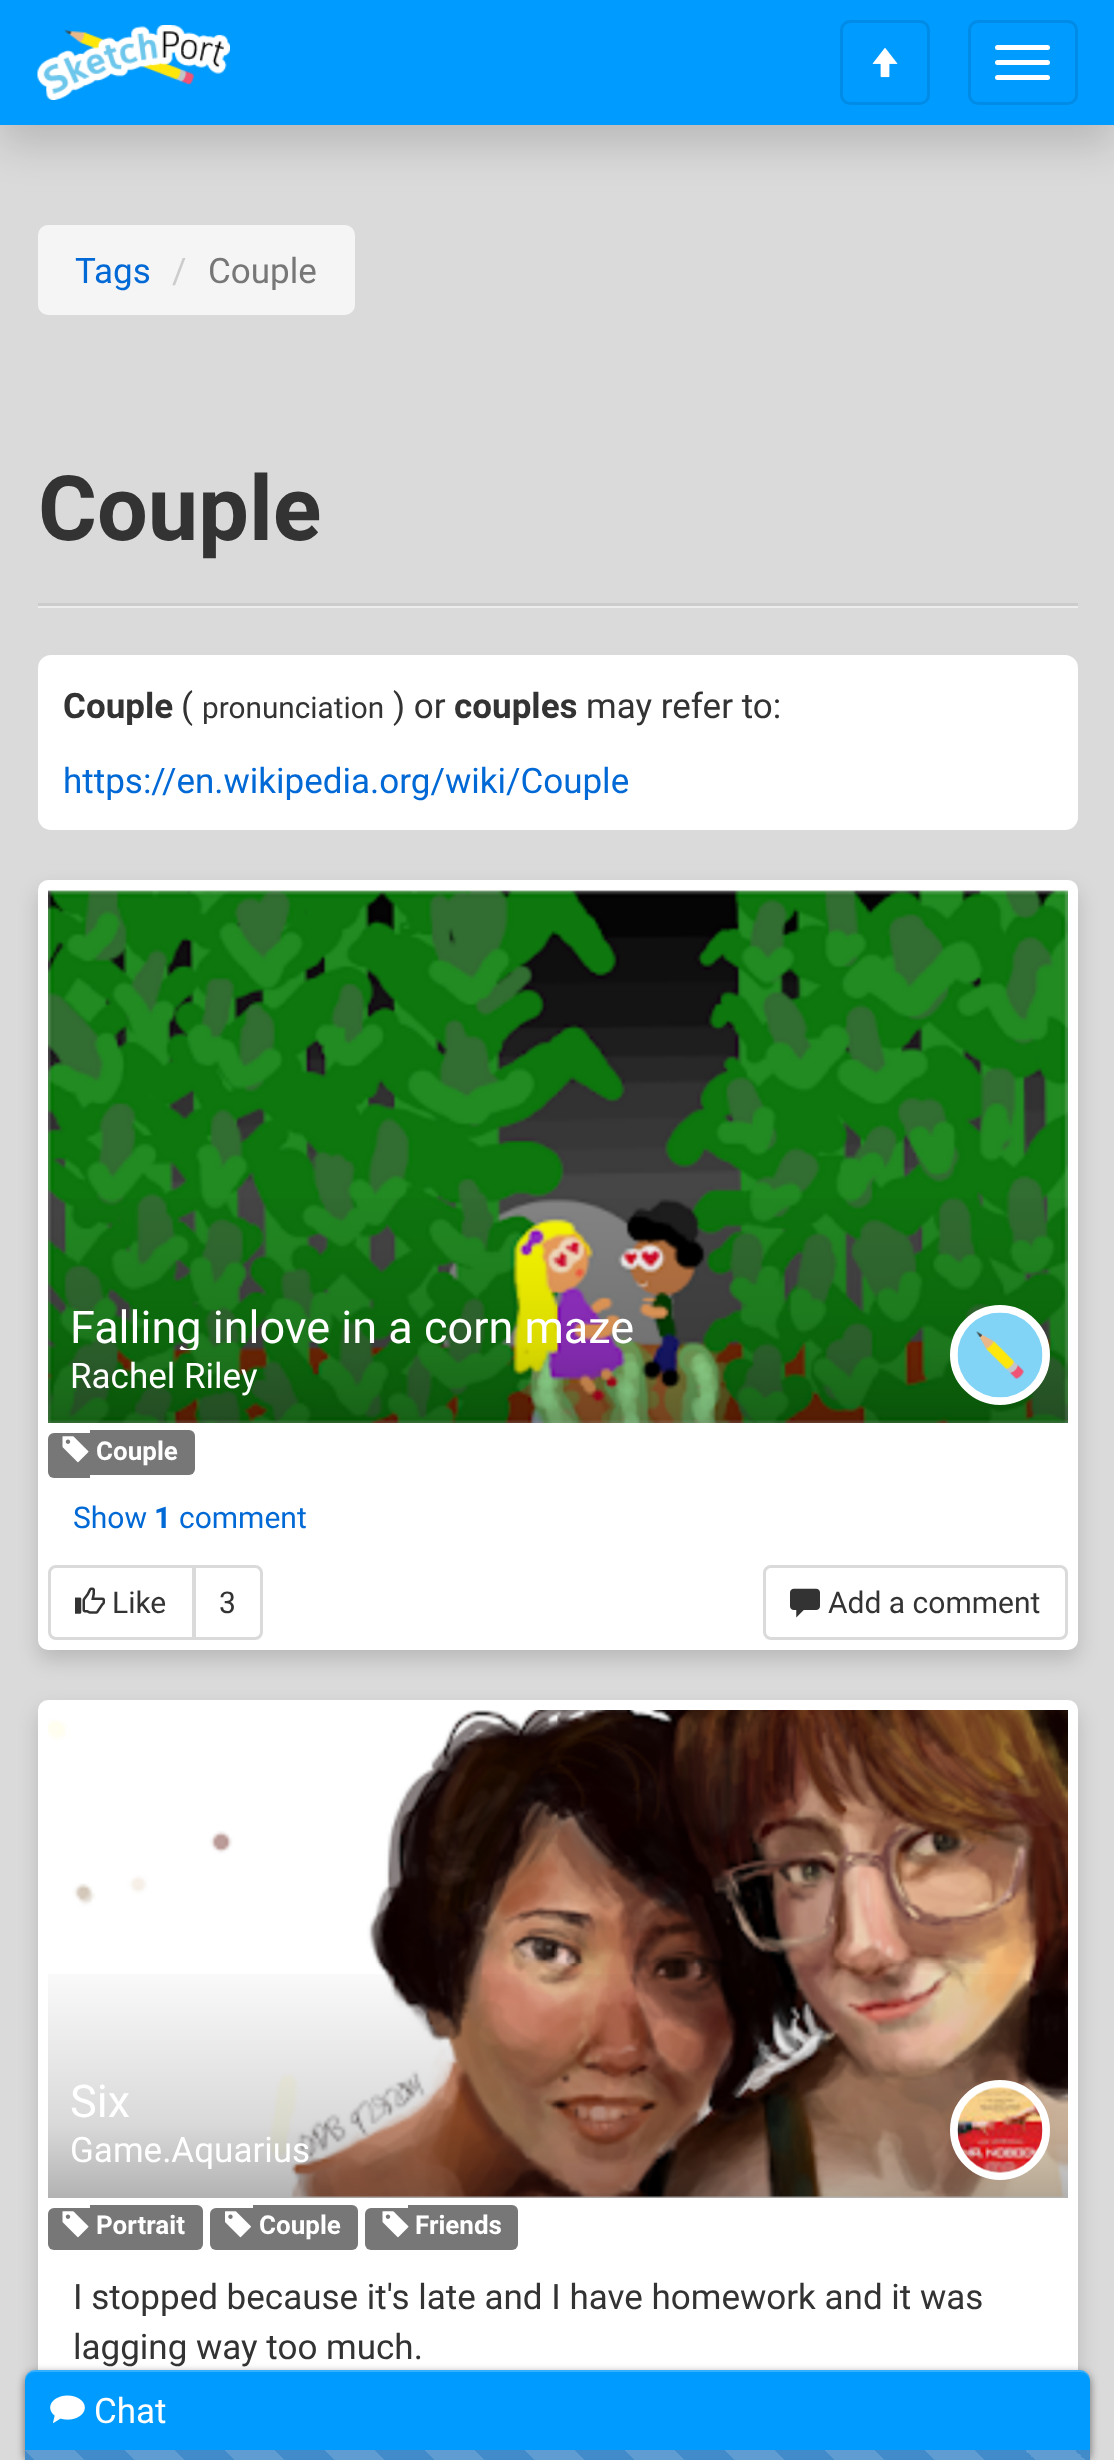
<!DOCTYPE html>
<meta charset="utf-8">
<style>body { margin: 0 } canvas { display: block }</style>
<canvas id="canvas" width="1114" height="2460"></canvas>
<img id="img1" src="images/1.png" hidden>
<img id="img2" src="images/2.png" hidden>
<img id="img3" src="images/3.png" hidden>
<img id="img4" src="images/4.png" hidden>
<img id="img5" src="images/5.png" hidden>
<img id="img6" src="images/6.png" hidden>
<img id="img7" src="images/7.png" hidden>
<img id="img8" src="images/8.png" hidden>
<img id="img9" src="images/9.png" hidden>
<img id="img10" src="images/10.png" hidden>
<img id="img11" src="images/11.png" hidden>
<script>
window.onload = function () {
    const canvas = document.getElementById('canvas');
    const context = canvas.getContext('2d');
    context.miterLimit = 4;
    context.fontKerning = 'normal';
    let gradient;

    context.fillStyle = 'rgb(218, 218, 218)';
    context.fillRect(0, 0, 1114, 2460);
    context.fillStyle = 'rgba(0, 0, 0, 0.15)';
    context.filter = 'blur(20px)';
    context.beginPath();
    context.rect(0, 20, 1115, 125);
    context.fill();
    context.filter = 'none';
    context.fillStyle = 'rgb(0, 155, 255)';
    context.fillRect(0, 0, 1114, 125);
    context.drawImage(document.getElementById('img1'), 37, 25, 193, 75);
    context.beginPath();
    context.roundRect(841.5, 21.5, 87, 82, 8.5);
    context.strokeStyle = 'rgb(0, 139, 230)';
    context.lineWidth = 3;
    context.stroke();
    context.drawImage(document.getElementById('img2'), 872, 48, 26, 30);
    context.beginPath();
    context.roundRect(969.5, 21.5, 107, 82, 8.5);
    context.stroke();
    context.fillStyle = 'rgb(255, 255, 255)';
    context.beginPath();
    context.roundRect(995, 45, 55, 5, 2.5);
    context.fill();
    context.beginPath();
    context.roundRect(995, 60, 55, 5, 2.5);
    context.fill();
    context.beginPath();
    context.roundRect(995, 75, 55, 5, 2.5);
    context.fill();
    context.fillStyle = 'rgb(245, 245, 245)';
    context.beginPath();
    context.roundRect(38, 225, 317, 90, 10);
    context.fill();
    context.fillStyle = 'rgb(237, 237, 237)';
    context.beginPath();
    context.moveTo(38, 605);
    context.lineTo(38, 608);
    context.lineTo(1078, 608);
    context.lineTo(1078, 418);
    context.lineTo(1078, 605);
    context.closePath();
    context.fill();
    context.fillStyle = 'rgb(204, 204, 204)';
    context.fillRect(38, 603, 1040, 3);
    context.fillStyle = 'rgb(255, 255, 255)';
    context.beginPath();
    context.roundRect(38, 655, 1040, 175, 13);
    context.fill();
    context.fillStyle = 'rgba(0, 0, 0, 0.15)';
    context.filter = 'blur(10px)';
    context.beginPath();
    context.roundRect(38, 890, 1040, 770, 10);
    context.fill();
    context.filter = 'none';
    context.fillStyle = 'rgb(255, 255, 255)';
    context.beginPath();
    context.roundRect(38, 880, 1040, 770, 10);
    context.fill();
    context.drawImage(document.getElementById('img3'), 48, 890, 1020, 533);
    gradient = context.createLinearGradient(558, 1423, 558, 890);
    gradient.addColorStop(0, 'rgba(0, 0, 0, 0.3)');
    gradient.addColorStop(0.14, 'rgba(0, 0, 0, 0.15)');
    gradient.addColorStop(0.47, 'rgba(0, 0, 0, 0)');
    gradient.addColorStop(1, 'rgba(0, 0, 0, 0)');
    context.fillStyle = gradient;
    context.fillRect(48, 1198, 1020, 225);
    context.fillStyle = 'rgb(255, 255, 255)';
    context.beginPath();
    context.arc(1000, 1355, 48.5, 0, 2 * Math.PI);
    context.fill();
    context.strokeStyle = 'rgb(255, 255, 255)';
    context.stroke();
    context.drawImage(document.getElementById('img4'), 957, 1312, 86, 86);
    context.fillStyle = 'rgb(119, 119, 119)';
    context.beginPath();
    context.roundRect(48, 1433, 42, 45, [6, 0, 0, 6]);
    context.fill();
    context.beginPath();
    context.roundRect(90, 1430, 105, 45, [0, 6, 6, 0]);
    context.fill();
    context.drawImage(document.getElementById('img5'), 62, 1436, 27, 27);
    context.beginPath();
    context.roundRect(764.5, 1566.5, 302, 72, 6.5);
    context.strokeStyle = 'rgb(218, 218, 218)';
    context.stroke();
    context.drawImage(document.getElementById('img6'), 790, 1588, 30, 30);
    context.beginPath();
    context.roundRect(49.5, 1566.5, 144, 72, [6.5, 0, 0, 6.5]);
    context.stroke();
    context.drawImage(document.getElementById('img7'), 75, 1587, 30, 27);
    context.beginPath();
    context.roundRect(194.5, 1566.5, 67, 72, [0, 6.5, 6.5, 0]);
    context.stroke();
    context.fillStyle = 'rgba(0, 0, 0, 0.15)';
    context.filter = 'blur(10px)';
    context.beginPath();
    context.roundRect(38, 1710, 1040, 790, 10);
    context.fill();
    context.filter = 'none';
    context.fillStyle = 'rgb(255, 255, 255)';
    context.beginPath();
    context.roundRect(38, 1700, 1040, 760, [10, 10, 0, 0]);
    context.fill();
    context.drawImage(document.getElementById('img8'), 48, 1710, 1020, 488);
    gradient = context.createLinearGradient(558, 2198, 558, 1710);
    gradient.addColorStop(0, 'rgba(0, 0, 0, 0.3)');
    gradient.addColorStop(0.15, 'rgba(0, 0, 0, 0.15)');
    gradient.addColorStop(0.51, 'rgba(0, 0, 0, 0)');
    gradient.addColorStop(1, 'rgba(0, 0, 0, 0)');
    context.fillStyle = gradient;
    context.fillRect(48, 1974, 1020, 224);
    context.fillStyle = 'rgb(255, 255, 255)';
    context.beginPath();
    context.arc(1000, 2130, 48.5, 0, 2 * Math.PI);
    context.fill();
    context.strokeStyle = 'rgb(255, 255, 255)';
    context.stroke();
    context.drawImage(document.getElementById('img9'), 957, 2087, 86, 86);
    context.fillStyle = 'rgb(119, 119, 119)';
    context.beginPath();
    context.roundRect(48, 2208, 42, 42, [6, 0, 0, 6]);
    context.fill();
    context.beginPath();
    context.roundRect(90, 2205, 113, 45, [0, 6, 6, 0]);
    context.fill();
    context.drawImage(document.getElementById('img5'), 62, 2211, 27, 27);
    context.beginPath();
    context.roundRect(210, 2208, 43, 42, [6, 0, 0, 6]);
    context.fill();
    context.beginPath();
    context.roundRect(253, 2205, 105, 45, [0, 6, 6, 0]);
    context.fill();
    context.drawImage(document.getElementById('img10'), 225, 2211, 26, 27);
    context.beginPath();
    context.roundRect(365, 2208, 43, 42, [6, 0, 0, 6]);
    context.fill();
    context.beginPath();
    context.roundRect(408, 2205, 110, 45, [0, 6, 6, 0]);
    context.fill();
    context.drawImage(document.getElementById('img5'), 382, 2211, 27, 27);
    context.fillStyle = 'rgba(0, 0, 0, 0.5)';
    context.filter = 'blur(4px)';
    context.beginPath();
    context.roundRect(25, 2373, 1065, 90, 10);
    context.fill();
    context.filter = 'none';
    context.fillStyle = 'rgb(0, 155, 255)';
    context.beginPath();
    context.roundRect(25, 2370, 1065, 80, [10, 10, 0, 0]);
    context.fill();
    context.fillStyle = 'rgba(255, 255, 255, 0.2)';
    context.beginPath();
    context.moveTo(35, 2372);
    context.lineTo(1080, 2372);
    context.bezierCurveTo(1086, 2372, 1090, 2377, 1090, 2382);
    context.bezierCurveTo(1090, 2376, 1087, 2370, 1080, 2370);
    context.lineTo(35, 2370);
    context.bezierCurveTo(28, 2370, 25, 2376, 25, 2382);
    context.bezierCurveTo(25, 2377, 29, 2372, 35, 2372);
    context.closePath();
    context.fill();
    context.drawImage(document.getElementById('img11'), 50, 2395, 35, 28);
    gradient = context.createLinearGradient(25, 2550, 125, 2450);
    gradient.addColorStop(0.25, 'rgb(94, 156, 210)');
    gradient.addColorStop(0.25, 'rgb(66, 139, 202)');
    gradient.addColorStop(0.5, 'rgb(66, 139, 202)');
    gradient.addColorStop(0.5, 'rgb(94, 156, 210)');
    gradient.addColorStop(0.75, 'rgb(94, 156, 210)');
    gradient.addColorStop(0.75, 'rgb(66, 139, 202)');
    gradient.addColorStop(1, 'rgb(66, 139, 202)');
    context.fillStyle = gradient;
    context.fillRect(25, 2450, 100, 10);
    gradient = context.createLinearGradient(125, 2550, 225, 2450);
    gradient.addColorStop(0.25, 'rgb(94, 156, 210)');
    gradient.addColorStop(0.25, 'rgb(66, 139, 202)');
    gradient.addColorStop(0.5, 'rgb(66, 139, 202)');
    gradient.addColorStop(0.5, 'rgb(94, 156, 210)');
    gradient.addColorStop(0.75, 'rgb(94, 156, 210)');
    gradient.addColorStop(0.75, 'rgb(66, 139, 202)');
    gradient.addColorStop(1, 'rgb(66, 139, 202)');
    context.fillStyle = gradient;
    context.fillRect(125, 2450, 100, 10);
    gradient = context.createLinearGradient(225, 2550, 325, 2450);
    gradient.addColorStop(0.25, 'rgb(94, 156, 210)');
    gradient.addColorStop(0.25, 'rgb(66, 139, 202)');
    gradient.addColorStop(0.5, 'rgb(66, 139, 202)');
    gradient.addColorStop(0.5, 'rgb(94, 156, 210)');
    gradient.addColorStop(0.75, 'rgb(94, 156, 210)');
    gradient.addColorStop(0.75, 'rgb(66, 139, 202)');
    gradient.addColorStop(1, 'rgb(66, 139, 202)');
    context.fillStyle = gradient;
    context.fillRect(225, 2450, 100, 10);
    gradient = context.createLinearGradient(325, 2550, 425, 2450);
    gradient.addColorStop(0.25, 'rgb(94, 156, 210)');
    gradient.addColorStop(0.25, 'rgb(66, 139, 202)');
    gradient.addColorStop(0.5, 'rgb(66, 139, 202)');
    gradient.addColorStop(0.5, 'rgb(94, 156, 210)');
    gradient.addColorStop(0.75, 'rgb(94, 156, 210)');
    gradient.addColorStop(0.75, 'rgb(66, 139, 202)');
    gradient.addColorStop(1, 'rgb(66, 139, 202)');
    context.fillStyle = gradient;
    context.fillRect(325, 2450, 100, 10);
    gradient = context.createLinearGradient(425, 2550, 525, 2450);
    gradient.addColorStop(0.25, 'rgb(94, 156, 210)');
    gradient.addColorStop(0.25, 'rgb(66, 139, 202)');
    gradient.addColorStop(0.5, 'rgb(66, 139, 202)');
    gradient.addColorStop(0.5, 'rgb(94, 156, 210)');
    gradient.addColorStop(0.75, 'rgb(94, 156, 210)');
    gradient.addColorStop(0.75, 'rgb(66, 139, 202)');
    gradient.addColorStop(1, 'rgb(66, 139, 202)');
    context.fillStyle = gradient;
    context.fillRect(425, 2450, 100, 10);
    gradient = context.createLinearGradient(525, 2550, 625, 2450);
    gradient.addColorStop(0.25, 'rgb(94, 156, 210)');
    gradient.addColorStop(0.25, 'rgb(66, 139, 202)');
    gradient.addColorStop(0.5, 'rgb(66, 139, 202)');
    gradient.addColorStop(0.5, 'rgb(94, 156, 210)');
    gradient.addColorStop(0.75, 'rgb(94, 156, 210)');
    gradient.addColorStop(0.75, 'rgb(66, 139, 202)');
    gradient.addColorStop(1, 'rgb(66, 139, 202)');
    context.fillStyle = gradient;
    context.fillRect(525, 2450, 100, 10);
    gradient = context.createLinearGradient(625, 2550, 725, 2450);
    gradient.addColorStop(0.25, 'rgb(94, 156, 210)');
    gradient.addColorStop(0.25, 'rgb(66, 139, 202)');
    gradient.addColorStop(0.5, 'rgb(66, 139, 202)');
    gradient.addColorStop(0.5, 'rgb(94, 156, 210)');
    gradient.addColorStop(0.75, 'rgb(94, 156, 210)');
    gradient.addColorStop(0.75, 'rgb(66, 139, 202)');
    gradient.addColorStop(1, 'rgb(66, 139, 202)');
    context.fillStyle = gradient;
    context.fillRect(625, 2450, 100, 10);
    gradient = context.createLinearGradient(725, 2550, 825, 2450);
    gradient.addColorStop(0.25, 'rgb(94, 156, 210)');
    gradient.addColorStop(0.25, 'rgb(66, 139, 202)');
    gradient.addColorStop(0.5, 'rgb(66, 139, 202)');
    gradient.addColorStop(0.5, 'rgb(94, 156, 210)');
    gradient.addColorStop(0.75, 'rgb(94, 156, 210)');
    gradient.addColorStop(0.75, 'rgb(66, 139, 202)');
    gradient.addColorStop(1, 'rgb(66, 139, 202)');
    context.fillStyle = gradient;
    context.fillRect(725, 2450, 100, 10);
    gradient = context.createLinearGradient(825, 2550, 925, 2450);
    gradient.addColorStop(0.25, 'rgb(94, 156, 210)');
    gradient.addColorStop(0.25, 'rgb(66, 139, 202)');
    gradient.addColorStop(0.5, 'rgb(66, 139, 202)');
    gradient.addColorStop(0.5, 'rgb(94, 156, 210)');
    gradient.addColorStop(0.75, 'rgb(94, 156, 210)');
    gradient.addColorStop(0.75, 'rgb(66, 139, 202)');
    gradient.addColorStop(1, 'rgb(66, 139, 202)');
    context.fillStyle = gradient;
    context.fillRect(825, 2450, 100, 10);
    gradient = context.createLinearGradient(925, 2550, 1025, 2450);
    gradient.addColorStop(0.25, 'rgb(94, 156, 210)');
    gradient.addColorStop(0.25, 'rgb(66, 139, 202)');
    gradient.addColorStop(0.5, 'rgb(66, 139, 202)');
    gradient.addColorStop(0.5, 'rgb(94, 156, 210)');
    gradient.addColorStop(0.75, 'rgb(94, 156, 210)');
    gradient.addColorStop(0.75, 'rgb(66, 139, 202)');
    gradient.addColorStop(1, 'rgb(66, 139, 202)');
    context.fillStyle = gradient;
    context.fillRect(925, 2450, 100, 10);
    gradient = context.createLinearGradient(1025, 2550, 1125, 2450);
    gradient.addColorStop(0.25, 'rgb(94, 156, 210)');
    gradient.addColorStop(0.25, 'rgb(66, 139, 202)');
    gradient.addColorStop(0.5, 'rgb(66, 139, 202)');
    gradient.addColorStop(0.5, 'rgb(94, 156, 210)');
    gradient.addColorStop(0.75, 'rgb(94, 156, 210)');
    gradient.addColorStop(0.75, 'rgb(66, 139, 202)');
    gradient.addColorStop(1, 'rgb(66, 139, 202)');
    context.fillStyle = gradient;
    context.fillRect(1025, 2450, 65, 10);
    context.font = '35px Roboto';
    context.fillStyle = 'rgb(0, 105, 214)';
    context.fillText('Tags', 75, 283);
    context.fillStyle = 'rgb(204, 204, 204)';
    context.fillText('/', 172, 283);
    context.fillStyle = 'rgb(119, 119, 119)';
    context.fillText('Couple', 208, 283);
    context.font = 'bold 90px Roboto';
    context.fillStyle = 'rgb(51, 51, 51)';
    context.fillText('Couple', 38, 540);
    context.font = 'bold 35px Roboto';
    context.fillText('Couple', 63, 718);
    context.font = '35px Roboto';
    context.fillText('(', 181, 718);
    context.font = '29.75px Roboto';
    context.fillText('pronunciation', 202, 718);
    context.font = '35px Roboto';
    context.fillText(') or', 393, 718);
    context.font = 'bold 35px Roboto';
    context.fillText('couples', 454, 718);
    context.font = '35px Roboto';
    context.fillText('may refer to:', 586, 718);
    context.fillStyle = 'rgb(0, 105, 214)';
    context.fillText('https://en.wikipedia.org/wiki/Couple', 63, 793);
    context.save();
    context.beginPath();
    context.rect(70, 1305, 875, 45);
    context.clip();
    context.font = '45px Roboto';
    context.fillStyle = 'rgb(255, 255, 255)';
    context.fillText('Falling inlove in a corn maze', 70, 1343);
    context.restore();
    context.fillStyle = 'rgb(255, 255, 255)';
    context.fillText('Rachel Riley', 70, 1388);
    context.font = 'bold 26px Roboto';
    context.fillText('Couple', 96, 1460);
    context.font = '30px Roboto';
    context.fillStyle = 'rgb(0, 105, 214)';
    context.fillText('Show', 73, 1528);
    context.font = 'bold 30px Roboto';
    context.fillText('1', 154, 1528);
    context.font = '30px Roboto';
    context.fillText('comment', 179, 1528);
    context.fillStyle = 'rgb(51, 51, 51)';
    context.fillText('Add a comment', 828, 1613);
    context.fillText('Like', 112, 1613);
    context.fillText('3', 219, 1613);
    context.font = '45px Roboto';
    context.fillStyle = 'rgb(255, 255, 255)';
    context.fillText('Six', 70, 2117);
    context.font = '35px Roboto';
    context.fillText('Game.Aquarius', 70, 2162);
    context.font = 'bold 26px Roboto';
    context.fillText('Portrait', 96, 2234);
    context.fillText('Couple', 259, 2234);
    context.fillText('Friends', 415, 2234);
    context.font = '35px Roboto';
    context.fillStyle = 'rgb(51, 51, 51)';
    context.fillText('I stopped because it\'s late and I have homework and it was', 73, 2309);
    context.fillText('lagging way too much.', 73, 2359);
    context.fillStyle = 'rgb(255, 255, 255)';
    context.fillText('Chat', 94, 2423);
};
</script>
